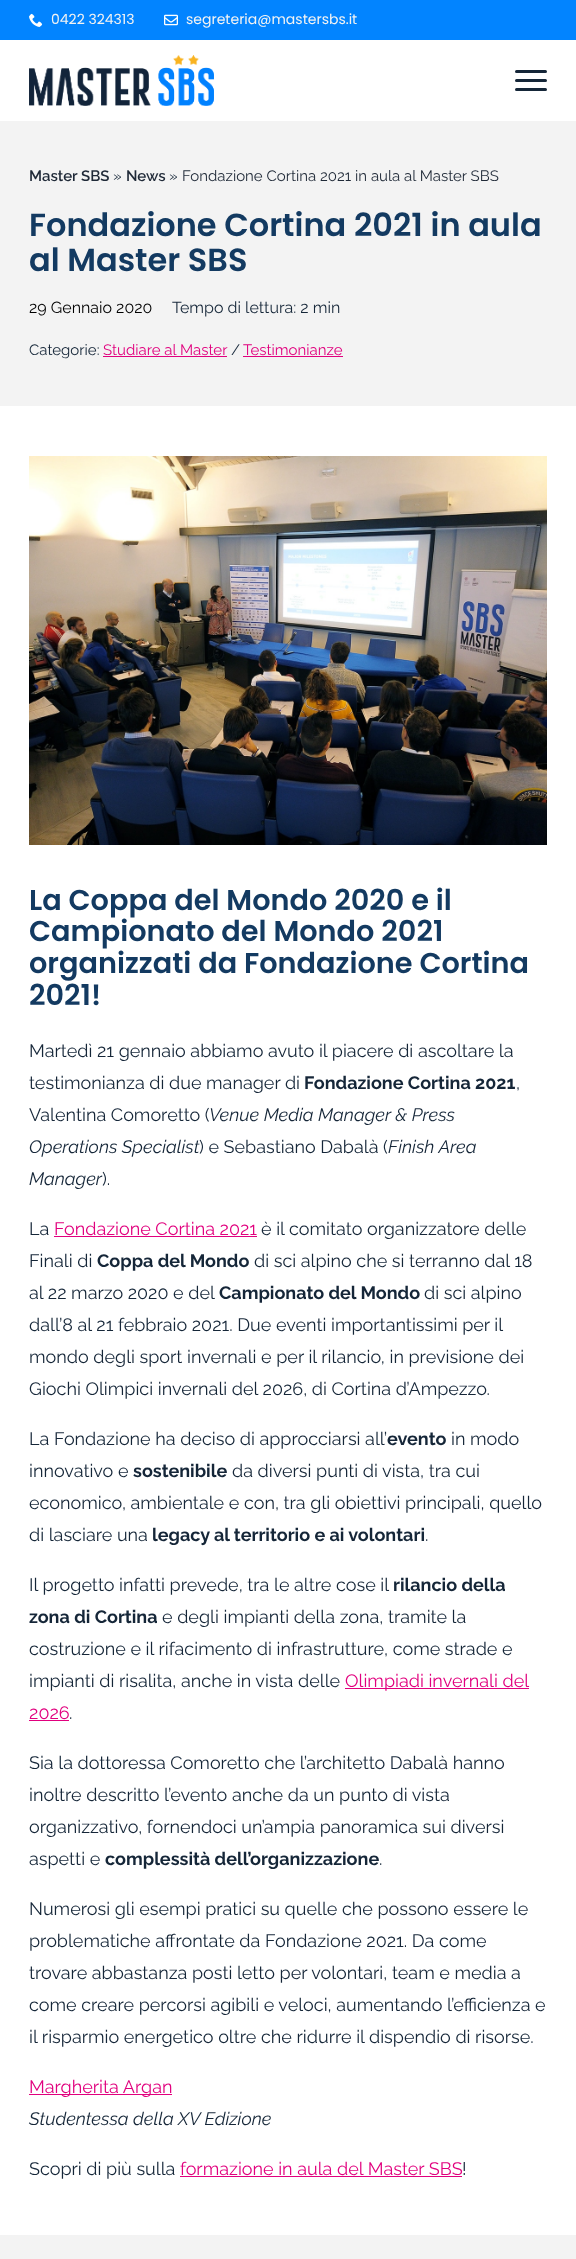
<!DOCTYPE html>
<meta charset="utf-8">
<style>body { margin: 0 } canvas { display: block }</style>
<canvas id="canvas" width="576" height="2259"></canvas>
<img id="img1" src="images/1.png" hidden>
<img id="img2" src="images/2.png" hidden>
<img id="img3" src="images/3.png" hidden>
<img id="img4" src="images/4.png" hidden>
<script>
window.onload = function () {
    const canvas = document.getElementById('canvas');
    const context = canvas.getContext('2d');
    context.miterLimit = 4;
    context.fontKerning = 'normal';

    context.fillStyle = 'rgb(255, 255, 255)';
    context.fillRect(0, 0, 576, 2259);
    context.fillStyle = 'rgb(2, 132, 255)';
    context.fillRect(0, 0, 576, 40);
    context.drawImage(document.getElementById('img1'), 29, 13, 14, 14);
    context.drawImage(document.getElementById('img2'), 164, 14, 14, 12);
    context.drawImage(document.getElementById('img3'), 29, 55, 185, 51);
    context.fillStyle = 'rgb(21, 38, 56)';
    context.beginPath();
    context.roundRect(515, 79, 32, 3, 1.5);
    context.fill();
    context.beginPath();
    context.roundRect(515, 70, 32, 3, 1.5);
    context.fill();
    context.beginPath();
    context.roundRect(515, 88, 32, 3, 1.5);
    context.fill();
    context.fillStyle = 'rgb(243, 243, 243)';
    context.fillRect(0, 121, 576, 285);
    context.fillStyle = 'rgb(225, 0, 126)';
    context.fillRect(103, 356, 124, 1);
    context.fillRect(243, 356, 100, 1);
    context.fillStyle = 'rgb(243, 243, 243)';
    context.fillRect(0, 2235, 576, 24);
    context.drawImage(document.getElementById('img4'), 29, 456, 518, 389);
    context.fillStyle = 'rgb(225, 0, 126)';
    context.fillRect(54, 1236, 203, 1);
    context.fillRect(345, 1688, 184, 1);
    context.fillRect(29, 1720, 40, 1);
    context.fillRect(29, 2094, 143, 1);
    context.fillRect(180, 2176, 282, 1);
    context.font = '14px Poppins';
    context.fillStyle = 'rgb(243, 243, 243)';
    context.fillText('0422 324313', 51, 24);
    context.fillText('segreteria@mastersbs.it', 186, 24);
    context.font = '600 15px Raleway';
    context.fillStyle = 'rgb(31, 41, 55)';
    context.fillText('Master SBS', 29, 181);
    context.font = '15px Raleway';
    context.fillStyle = 'rgb(21, 38, 56)';
    context.fillText('»', 113, 181);
    context.font = '600 15px Raleway';
    context.fillStyle = 'rgb(31, 41, 55)';
    context.fillText('News', 126, 181);
    context.font = '15px Raleway';
    context.fillStyle = 'rgb(21, 38, 56)';
    context.fillText('»', 169, 181);
    context.fillStyle = 'rgb(31, 41, 55)';
    context.fillText('Fondazione Cortina 2021 in aula al Master SBS', 182, 181);
    context.font = '600 32px Poppins';
    context.fillStyle = 'rgb(19, 58, 97)';
    context.fillText('Fondazione Cortina 2021 in aula', 29, 236);
    context.fillText('al Master SBS', 29, 271);
    context.font = '16px Raleway';
    context.fillStyle = 'rgb(0, 0, 0)';
    context.fillText('29 Gennaio 2020', 29, 313);
    context.fillStyle = 'rgb(21, 38, 56)';
    context.fillText('Tempo di lettura: 2 min', 172, 313);
    context.font = '15px Raleway';
    context.fillText('Categorie:', 29, 355);
    context.fillStyle = 'rgb(225, 0, 126)';
    context.fillText('Studiare al Master', 103, 355);
    context.fillStyle = 'rgb(21, 38, 56)';
    context.fillText('/', 231, 355);
    context.fillStyle = 'rgb(225, 0, 126)';
    context.fillText('Testimonianze', 243, 355);
    context.font = '600 28.75px Poppins';
    context.fillStyle = 'rgb(19, 58, 97)';
    context.fillText('La Coppa del Mondo 2020 e il', 29, 910);
    context.fillText('Campionato del Mondo 2021', 29, 941);
    context.fillText('organizzati da Fondazione Cortina', 29, 973);
    context.fillText('2021!', 29, 1005);
    context.font = '18px Raleway';
    context.fillStyle = 'rgb(21, 38, 56)';
    context.fillText('Martedì 21 gennaio abbiamo avuto il piacere di ascoltare la', 29, 1057);
    context.fillText('testimonianza di due manager di', 29, 1089);
    context.font = 'bold 18px Raleway';
    context.fillText('Fondazione Cortina 2021', 304, 1089);
    context.font = '18px Raleway';
    context.fillText(',', 516, 1089);
    context.fillText('Valentina Comoretto (', 29, 1121);
    context.font = 'italic 18px Raleway';
    context.fillText('Venue Media Manager & Press', 209, 1121);
    context.fillText('Operations Specialist', 29, 1153);
    context.font = '18px Raleway';
    context.fillText(') e Sebastiano Dabalà (', 199, 1153);
    context.font = 'italic 18px Raleway';
    context.fillText('Finish Area', 388, 1153);
    context.fillText('Manager', 29, 1185);
    context.font = '18px Raleway';
    context.fillText(').', 102, 1185);
    context.fillText('La', 29, 1235);
    context.fillStyle = 'rgb(225, 0, 126)';
    context.fillText('Fondazione Cortina 2021', 54, 1235);
    context.fillStyle = 'rgb(21, 38, 56)';
    context.fillText('è il comitato organizzatore delle', 261, 1235);
    context.fillText('Finali di', 29, 1267);
    context.font = 'bold 18px Raleway';
    context.fillText('Coppa del Mondo', 97, 1267);
    context.font = '18px Raleway';
    context.fillText('di sci alpino che si terranno dal 18', 254, 1267);
    context.fillText('al 22 marzo 2020 e del', 29, 1299);
    context.font = 'bold 18px Raleway';
    context.fillText('Campionato del Mondo', 219, 1299);
    context.font = '18px Raleway';
    context.fillText('di sci alpino', 424, 1299);
    context.fillText('dall’8 al 21 febbraio 2021. Due eventi importantissimi per il', 29, 1331);
    context.fillText('mondo degli sport invernali e per il rilancio, in previsione dei', 29, 1363);
    context.fillText('Giochi Olimpici invernali del 2026, di Cortina d’Ampezzo.', 29, 1395);
    context.fillText('La Fondazione ha deciso di approcciarsi all’', 29, 1445);
    context.font = 'bold 18px Raleway';
    context.fillText('evento', 387, 1445);
    context.font = '18px Raleway';
    context.fillText('in modo', 451, 1445);
    context.fillText('innovativo e', 29, 1477);
    context.font = 'bold 18px Raleway';
    context.fillText('sostenibile', 133, 1477);
    context.font = '18px Raleway';
    context.fillText('da diversi punti di vista, tra cui', 232, 1477);
    context.fillText('economico, ambientale e con, tra gli obiettivi principali, quello', 29, 1509);
    context.fillText('di lasciare una', 29, 1541);
    context.font = 'bold 18px Raleway';
    context.fillText('legacy al territorio e ai volontari', 152, 1541);
    context.font = '18px Raleway';
    context.fillText('.', 425, 1541);
    context.fillText('Il progetto infatti prevede, tra le altre cose il', 29, 1591);
    context.font = 'bold 18px Raleway';
    context.fillText('rilancio della', 393, 1591);
    context.fillText('zona di Cortina', 29, 1623);
    context.font = '18px Raleway';
    context.fillText('e degli impianti della zona, tramite la', 162, 1623);
    context.fillText('costruzione e il rifacimento di infrastrutture, come strade e', 29, 1655);
    context.fillText('impianti di risalita, anche in vista delle', 29, 1687);
    context.fillStyle = 'rgb(225, 0, 126)';
    context.fillText('Olimpiadi invernali del', 345, 1687);
    context.fillText('2026', 29, 1719);
    context.fillStyle = 'rgb(21, 38, 56)';
    context.fillText('.', 69, 1719);
    context.fillText('Sia la dottoressa Comoretto che l’architetto Dabalà hanno', 29, 1769);
    context.fillText('inoltre descritto l’evento anche da un punto di vista', 29, 1801);
    context.fillText('organizzativo, fornendoci un’ampia panoramica sui diversi', 29, 1833);
    context.fillText('aspetti e', 29, 1865);
    context.font = 'bold 18px Raleway';
    context.fillText('complessità dell’organizzazione', 105, 1865);
    context.font = '18px Raleway';
    context.fillText('.', 379, 1865);
    context.fillText('Numerosi gli esempi pratici su quelle che possono essere le', 29, 1915);
    context.fillText('problematiche affrontate da Fondazione 2021. Da come', 29, 1947);
    context.fillText('trovare abbastanza posti letto per volontari, team e media a', 29, 1979);
    context.fillText('come creare percorsi agibili e veloci, aumentando l’efficienza e', 29, 2011);
    context.fillText('il risparmio energetico oltre che ridurre il dispendio di risorse.', 29, 2043);
    context.fillStyle = 'rgb(225, 0, 126)';
    context.fillText('Margherita Argan', 29, 2093);
    context.font = 'italic 18px Raleway';
    context.fillStyle = 'rgb(21, 38, 56)';
    context.fillText('Studentessa della XV Edizione', 29, 2125);
    context.font = '18px Raleway';
    context.fillText('Scopri di più sulla', 29, 2175);
    context.fillStyle = 'rgb(225, 0, 126)';
    context.fillText('formazione in aula del Master SBS', 180, 2175);
    context.fillStyle = 'rgb(21, 38, 56)';
    context.fillText('!', 462, 2175);
};
</script>
